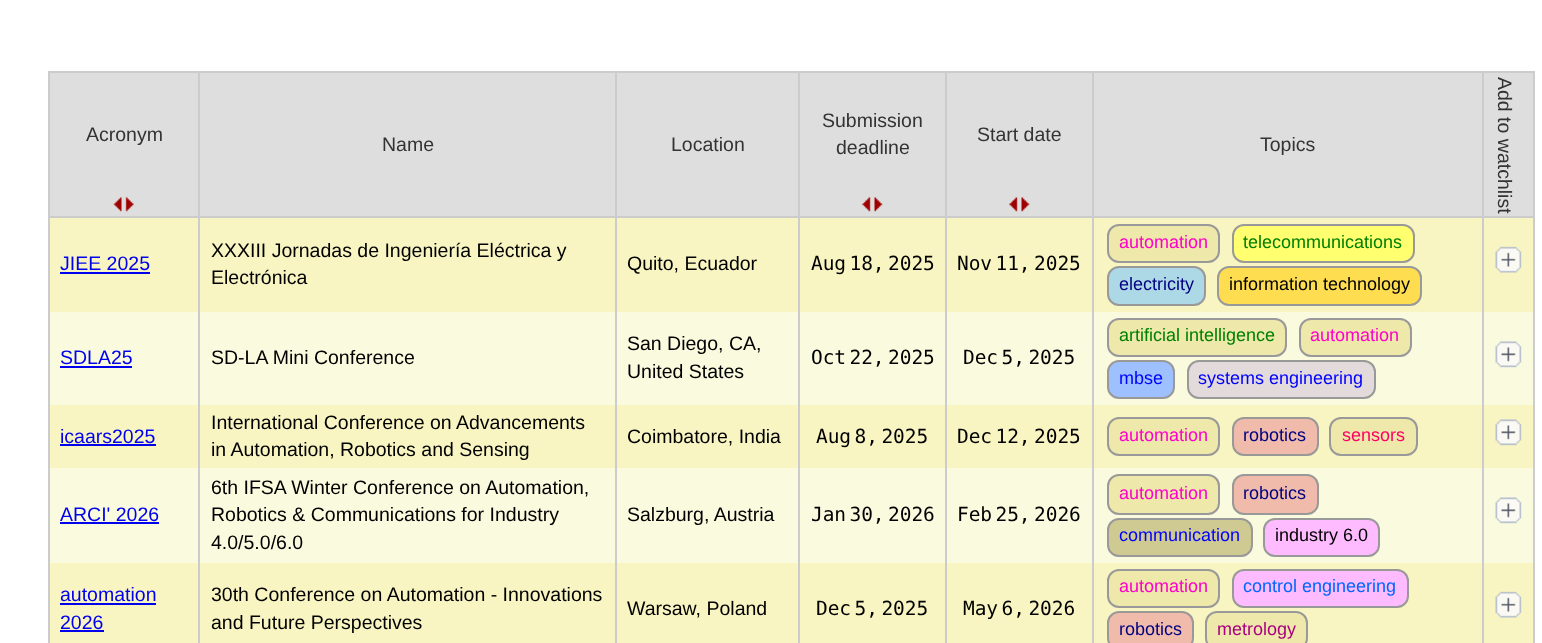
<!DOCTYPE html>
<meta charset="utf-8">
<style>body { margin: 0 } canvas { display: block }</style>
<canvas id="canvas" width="1542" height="643"></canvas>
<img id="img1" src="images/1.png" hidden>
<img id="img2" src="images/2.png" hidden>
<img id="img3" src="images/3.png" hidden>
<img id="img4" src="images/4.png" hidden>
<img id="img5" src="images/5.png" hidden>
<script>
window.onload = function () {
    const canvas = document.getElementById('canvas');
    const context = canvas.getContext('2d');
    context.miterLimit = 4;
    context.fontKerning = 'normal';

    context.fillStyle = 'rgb(255, 255, 255)';
    context.fillRect(0, 0, 1542, 643);
    context.fillStyle = 'rgb(204, 204, 204)';
    context.fillRect(48, 71, 1487, 2);
    context.fillRect(1533, 71, 2, 572);
    context.fillRect(48, 71, 2, 572);
    context.fillStyle = 'rgb(222, 222, 222)';
    context.fillRect(50, 73, 148, 143);
    context.drawImage(document.getElementById('img1'), 113, 197, 21, 15);
    context.fillStyle = 'rgb(248, 245, 194)';
    context.fillRect(50, 218, 1483, 94);
    context.fillStyle = 'rgb(249, 250, 222)';
    context.fillRect(50, 312, 1483, 93);
    context.fillStyle = 'rgb(248, 245, 194)';
    context.fillRect(50, 405, 1483, 63);
    context.fillStyle = 'rgb(249, 250, 222)';
    context.fillRect(50, 468, 1483, 95);
    context.fillStyle = 'rgb(248, 245, 194)';
    context.fillRect(50, 563, 1483, 80);
    context.fillStyle = 'rgb(204, 204, 204)';
    context.fillRect(1482, 216, 2, 427);
    context.fillRect(1482, 216, 53, 2);
    context.fillRect(1482, 71, 2, 147);
    context.fillRect(1092, 216, 2, 427);
    context.fillRect(1092, 216, 392, 2);
    context.fillRect(1092, 71, 2, 147);
    context.fillRect(945, 216, 2, 427);
    context.fillRect(945, 216, 149, 2);
    context.fillRect(945, 71, 2, 147);
    context.fillRect(798, 216, 2, 427);
    context.fillRect(798, 216, 149, 2);
    context.fillRect(798, 71, 2, 147);
    context.fillRect(615, 216, 2, 427);
    context.fillRect(615, 216, 185, 2);
    context.fillRect(615, 71, 2, 147);
    context.fillRect(198, 216, 2, 427);
    context.fillRect(198, 216, 419, 2);
    context.fillRect(198, 71, 2, 147);
    context.fillRect(48, 216, 152, 2);
    context.fillStyle = 'rgb(222, 222, 222)';
    context.fillRect(200, 73, 415, 143);
    context.fillRect(617, 73, 181, 143);
    context.fillRect(800, 73, 145, 143);
    context.drawImage(document.getElementById('img2'), 862, 197, 21, 15);
    context.fillRect(947, 73, 145, 143);
    context.drawImage(document.getElementById('img2'), 1009, 197, 21, 15);
    context.fillRect(1094, 73, 388, 143);
    context.fillRect(1484, 73, 49, 143);
    context.fillStyle = 'rgb(0, 0, 238)';
    context.fillRect(60, 272, 90, 2);
    context.fillStyle = 'rgb(238, 232, 170)';
    context.beginPath();
    context.roundRect(1108, 225, 111, 37, 11);
    context.fill();
    context.strokeStyle = 'rgb(153, 153, 153)';
    context.lineWidth = 2;
    context.stroke();
    context.fillStyle = 'rgb(255, 255, 112)';
    context.beginPath();
    context.roundRect(1233, 225, 181, 37, 11);
    context.fill();
    context.stroke();
    context.fillStyle = 'rgb(173, 216, 230)';
    context.beginPath();
    context.roundRect(1108, 267, 97, 38, 11);
    context.fill();
    context.stroke();
    context.fillStyle = 'rgb(255, 221, 81)';
    context.beginPath();
    context.roundRect(1218, 267, 203, 38, 11);
    context.fill();
    context.stroke();
    context.drawImage(document.getElementById('img3'), 1495, 246, 27, 27);
    context.fillStyle = 'rgb(0, 0, 238)';
    context.fillRect(60, 366, 72, 2);
    context.fillStyle = 'rgb(238, 232, 170)';
    context.beginPath();
    context.roundRect(1108, 319, 178, 37, 11);
    context.fill();
    context.stroke();
    context.beginPath();
    context.roundRect(1300, 319, 111, 37, 11);
    context.fill();
    context.stroke();
    context.fillStyle = 'rgb(159, 192, 255)';
    context.beginPath();
    context.roundRect(1108, 361, 66, 37, 11);
    context.fill();
    context.stroke();
    context.fillStyle = 'rgb(227, 219, 219)';
    context.beginPath();
    context.roundRect(1188, 361, 187, 37, 11);
    context.fill();
    context.stroke();
    context.drawImage(document.getElementById('img4'), 1495, 341, 27, 27);
    context.fillStyle = 'rgb(0, 0, 238)';
    context.fillRect(60, 444, 96, 2);
    context.fillStyle = 'rgb(238, 232, 170)';
    context.beginPath();
    context.roundRect(1108, 418, 111, 37, 11);
    context.fill();
    context.stroke();
    context.fillStyle = 'rgb(240, 187, 170)';
    context.beginPath();
    context.roundRect(1233, 418, 85, 37, 11);
    context.fill();
    context.stroke();
    context.fillStyle = 'rgb(238, 232, 170)';
    context.beginPath();
    context.roundRect(1330, 418, 87, 37, 11);
    context.fill();
    context.stroke();
    context.drawImage(document.getElementById('img5'), 1495, 419, 27, 27);
    context.fillStyle = 'rgb(0, 0, 238)';
    context.fillRect(60, 522, 99, 2);
    context.fillStyle = 'rgb(238, 232, 170)';
    context.beginPath();
    context.roundRect(1108, 475, 111, 39, 11);
    context.fill();
    context.stroke();
    context.fillStyle = 'rgb(240, 187, 170)';
    context.beginPath();
    context.roundRect(1233, 475, 85, 39, 11);
    context.fill();
    context.stroke();
    context.fillStyle = 'rgb(207, 202, 146)';
    context.beginPath();
    context.roundRect(1108, 519, 144, 37, 11);
    context.fill();
    context.stroke();
    context.fillStyle = 'rgb(255, 187, 255)';
    context.beginPath();
    context.roundRect(1264, 519, 115, 37, 11);
    context.fill();
    context.stroke();
    context.drawImage(document.getElementById('img4'), 1495, 497, 27, 27);
    context.fillStyle = 'rgb(0, 0, 238)';
    context.fillRect(60, 603, 96, 2);
    context.fillRect(60, 630, 44, 2);
    context.fillStyle = 'rgb(238, 232, 170)';
    context.beginPath();
    context.roundRect(1108, 570, 111, 37, 11);
    context.fill();
    context.stroke();
    context.fillStyle = 'rgb(255, 187, 255)';
    context.beginPath();
    context.roundRect(1233, 570, 175, 37, 11);
    context.fill();
    context.stroke();
    context.fillStyle = 'rgb(240, 187, 170)';
    context.beginPath();
    context.roundRect(1108, 612, 85, 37, 11);
    context.fill();
    context.stroke();
    context.fillStyle = 'rgb(238, 232, 170)';
    context.beginPath();
    context.roundRect(1206, 612, 101, 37, 11);
    context.fill();
    context.stroke();
    context.drawImage(document.getElementById('img3'), 1495, 591, 27, 27);
    context.font = '19.5px Liberation Sans';
    context.fillStyle = 'rgb(51, 51, 51)';
    context.fillText('Acronym', 86, 141);
    context.fillText('Name', 382, 151);
    context.fillText('Location', 671, 151);
    context.fillText('Submission', 822, 127);
    context.fillText('deadline', 836, 154);
    context.fillText('Start date', 977, 141);
    context.fillText('Topics', 1260, 151);
    context.save();
    context.translate(1498, 77);
    context.rotate(90 * Math.PI / 180);
    context.fillText('Add to watchlist', 0, 0);
    context.restore();
    context.fillStyle = 'rgb(0, 0, 238)';
    context.fillText('JIEE 2025', 60, 270);
    context.fillStyle = 'rgb(0, 0, 0)';
    context.fillText('XXXIII Jornadas de Ingeniería Eléctrica y', 211, 257);
    context.fillText('Electrónica', 211, 284);
    context.fillText('Quito, Ecuador', 627, 270);
    context.letterSpacing = '-0.1px';
    context.wordSpacing = '-8px';
    context.font = '19.5px DejaVu Sans Mono';
    context.fillText('Aug 18, 2025', 811, 270);
    context.fillText('Nov 11, 2025', 957, 270);
    context.letterSpacing = '0px';
    context.wordSpacing = '0px';
    context.font = '18px Liberation Sans';
    context.fillStyle = 'rgb(255, 0, 204)';
    context.fillText('automation', 1119, 248);
    context.fillStyle = 'rgb(0, 128, 0)';
    context.fillText('telecommunications', 1243, 248);
    context.fillStyle = 'rgb(0, 0, 128)';
    context.fillText('electricity', 1119, 290);
    context.fillStyle = 'rgb(0, 0, 0)';
    context.fillText('information technology', 1229, 290);
    context.font = '19.5px Liberation Sans';
    context.fillStyle = 'rgb(0, 0, 238)';
    context.fillText('SDLA25', 60, 364);
    context.fillStyle = 'rgb(0, 0, 0)';
    context.fillText('SD-LA Mini Conference', 211, 364);
    context.fillText('San Diego, CA,', 627, 350);
    context.fillText('United States', 627, 378);
    context.letterSpacing = '-0.1px';
    context.wordSpacing = '-8px';
    context.font = '19.5px DejaVu Sans Mono';
    context.fillText('Oct 22, 2025', 811, 364);
    context.fillText('Dec 5, 2025', 963, 364);
    context.letterSpacing = '0px';
    context.wordSpacing = '0px';
    context.font = '18px Liberation Sans';
    context.fillStyle = 'rgb(0, 128, 0)';
    context.fillText('artificial intelligence', 1119, 341);
    context.fillStyle = 'rgb(255, 0, 204)';
    context.fillText('automation', 1310, 341);
    context.fillStyle = 'rgb(0, 0, 255)';
    context.fillText('mbse', 1119, 384);
    context.fillText('systems engineering', 1198, 384);
    context.font = '19.5px Liberation Sans';
    context.fillStyle = 'rgb(0, 0, 238)';
    context.fillText('icaars2025', 60, 443);
    context.fillStyle = 'rgb(0, 0, 0)';
    context.fillText('International Conference on Advancements', 211, 429);
    context.fillText('in Automation, Robotics and Sensing', 211, 456);
    context.fillText('Coimbatore, India', 627, 443);
    context.letterSpacing = '-0.1px';
    context.wordSpacing = '-8px';
    context.font = '19.5px DejaVu Sans Mono';
    context.fillText('Aug 8, 2025', 816, 443);
    context.fillText('Dec 12, 2025', 957, 443);
    context.letterSpacing = '0px';
    context.wordSpacing = '0px';
    context.font = '18px Liberation Sans';
    context.fillStyle = 'rgb(255, 0, 204)';
    context.fillText('automation', 1119, 441);
    context.fillStyle = 'rgb(0, 0, 128)';
    context.fillText('robotics', 1243, 441);
    context.fillStyle = 'rgb(255, 0, 102)';
    context.fillText('sensors', 1342, 441);
    context.font = '19.5px Liberation Sans';
    context.fillStyle = 'rgb(0, 0, 238)';
    context.fillText('ARCI\' 2026', 60, 521);
    context.fillStyle = 'rgb(0, 0, 0)';
    context.fillText('6th IFSA Winter Conference on Automation,', 211, 494);
    context.fillText('Robotics & Communications for Industry', 211, 521);
    context.fillText('4.0/5.0/6.0', 211, 549);
    context.fillText('Salzburg, Austria', 627, 521);
    context.letterSpacing = '-0.1px';
    context.wordSpacing = '-8px';
    context.font = '19.5px DejaVu Sans Mono';
    context.fillText('Jan 30, 2026', 811, 521);
    context.fillText('Feb 25, 2026', 957, 521);
    context.letterSpacing = '0px';
    context.wordSpacing = '0px';
    context.font = '18px Liberation Sans';
    context.fillStyle = 'rgb(255, 0, 204)';
    context.fillText('automation', 1119, 499);
    context.fillStyle = 'rgb(0, 0, 128)';
    context.fillText('robotics', 1243, 499);
    context.fillStyle = 'rgb(0, 0, 255)';
    context.fillText('communication', 1119, 541);
    context.fillStyle = 'rgb(0, 0, 0)';
    context.fillText('industry 6.0', 1275, 541);
    context.font = '19.5px Liberation Sans';
    context.fillStyle = 'rgb(0, 0, 238)';
    context.fillText('automation', 60, 601);
    context.fillText('2026', 60, 629);
    context.fillStyle = 'rgb(0, 0, 0)';
    context.fillText('30th Conference on Automation - Innovations', 211, 601);
    context.fillText('and Future Perspectives', 211, 629);
    context.fillText('Warsaw, Poland', 627, 615);
    context.letterSpacing = '-0.1px';
    context.wordSpacing = '-8px';
    context.font = '19.5px DejaVu Sans Mono';
    context.fillText('Dec 5, 2025', 816, 615);
    context.fillText('May 6, 2026', 963, 615);
    context.letterSpacing = '0px';
    context.wordSpacing = '0px';
    context.font = '18px Liberation Sans';
    context.fillStyle = 'rgb(255, 0, 204)';
    context.fillText('automation', 1119, 592);
    context.fillStyle = 'rgb(0, 102, 255)';
    context.fillText('control engineering', 1243, 592);
    context.fillStyle = 'rgb(0, 0, 128)';
    context.fillText('robotics', 1119, 635);
    context.fillStyle = 'rgb(170, 0, 128)';
    context.fillText('metrology', 1217, 635);
};
</script>
